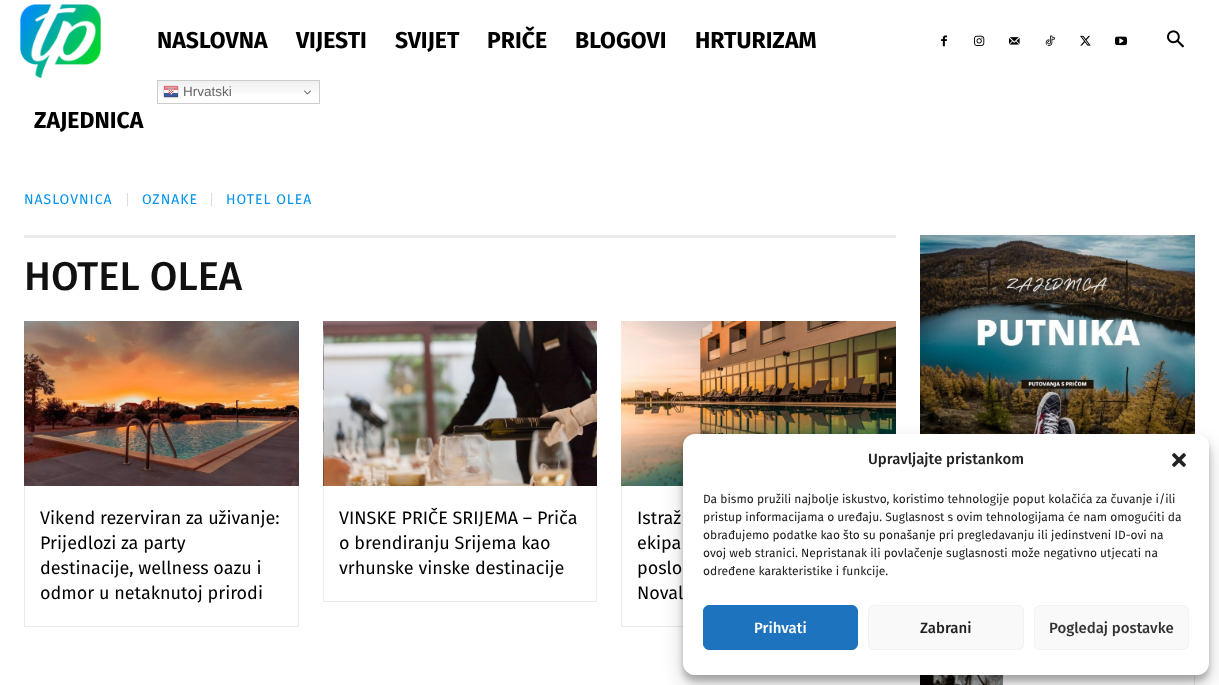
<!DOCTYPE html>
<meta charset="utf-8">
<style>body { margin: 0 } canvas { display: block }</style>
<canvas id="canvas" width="1219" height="685"></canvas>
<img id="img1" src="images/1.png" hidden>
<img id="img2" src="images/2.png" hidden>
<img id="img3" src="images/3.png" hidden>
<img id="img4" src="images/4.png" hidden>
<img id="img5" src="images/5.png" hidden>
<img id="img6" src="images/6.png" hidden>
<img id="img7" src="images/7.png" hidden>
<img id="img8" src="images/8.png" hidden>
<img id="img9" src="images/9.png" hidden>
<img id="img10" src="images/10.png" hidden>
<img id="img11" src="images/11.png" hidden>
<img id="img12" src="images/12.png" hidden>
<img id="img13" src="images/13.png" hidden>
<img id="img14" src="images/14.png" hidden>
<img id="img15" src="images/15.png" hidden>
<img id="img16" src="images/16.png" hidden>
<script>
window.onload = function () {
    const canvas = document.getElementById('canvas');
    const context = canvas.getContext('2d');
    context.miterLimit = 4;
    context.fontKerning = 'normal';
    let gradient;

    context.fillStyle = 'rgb(255, 255, 255)';
    context.fillRect(0, 0, 1219, 685);
    context.drawImage(document.getElementById('img1'), 20, 4, 81, 74);
    gradient = context.createLinearGradient(239, 80, 239, 104);
    gradient.addColorStop(0, 'rgb(239, 239, 239)');
    gradient.addColorStop(0.7, 'rgb(255, 255, 255)');
    context.fillStyle = gradient;
    context.fillRect(158, 81, 161, 13);
    context.strokeStyle = 'rgb(204, 204, 204)';
    context.strokeRect(157.5, 80.5, 162, 23);
    context.drawImage(document.getElementById('img2'), 163, 85, 16, 14);
    context.drawImage(document.getElementById('img3'), 304, 90, 7, 5);
    context.drawImage(document.getElementById('img4'), 941, 35, 6, 12);
    context.drawImage(document.getElementById('img5'), 974, 35, 11, 11);
    context.drawImage(document.getElementById('img6'), 1009, 37, 11, 8);
    context.drawImage(document.getElementById('img7'), 1045, 35, 10, 11);
    context.drawImage(document.getElementById('img8'), 1080, 35, 11, 11);
    context.drawImage(document.getElementById('img9'), 1115, 36, 12, 10);
    context.drawImage(document.getElementById('img10'), 1167, 30, 17, 18);
    context.fillStyle = 'rgb(221, 221, 221)';
    context.fillRect(127, 193, 1, 13);
    context.fillRect(211, 193, 1, 13);
    context.fillStyle = 'rgb(234, 234, 234)';
    context.fillRect(24, 235, 872, 3);
    context.drawImage(document.getElementById('img11'), 24, 321, 275, 165);
    context.fillRect(298, 486, 1, 141);
    context.fillRect(24, 626, 275, 1);
    context.fillRect(24, 486, 1, 141);
    context.drawImage(document.getElementById('img12'), 323, 321, 274, 165);
    context.fillRect(596, 486, 1, 116);
    context.fillRect(323, 601, 274, 1);
    context.fillRect(323, 486, 1, 116);
    context.drawImage(document.getElementById('img13'), 621, 321, 275, 165);
    context.fillRect(621, 626, 62, 1);
    context.fillRect(621, 486, 1, 141);
    context.drawImage(document.getElementById('img14'), 920, 235, 275, 199);
    context.drawImage(document.getElementById('img15'), 920, 675, 83, 10);
    context.fillRect(1194, 675, 1, 10);
    context.fillStyle = 'rgba(0, 0, 0, 0.23)';
    context.filter = 'blur(3px)';
    context.beginPath();
    context.roundRect(683, 440, 526, 241, 12);
    context.fill();
    context.filter = 'none';
    context.fillStyle = 'rgba(0, 0, 0, 0.19)';
    context.filter = 'blur(10px)';
    context.beginPath();
    context.roundRect(683, 444, 526, 241, 12);
    context.fill();
    context.filter = 'none';
    context.font = 'bold 23px Fira Sans';
    context.fillStyle = 'rgb(0, 0, 0)';
    context.fillText('NASLOVNA', 157, 48);
    context.fillText('VIJESTI', 296, 48);
    context.fillText('SVIJET', 395, 48);
    context.fillText('PRIČE', 487, 48);
    context.fillText('BLOGOVI', 575, 48);
    context.fillText('HRTURIZAM', 695, 48);
    context.font = '13.5px Liberation Sans';
    context.fillStyle = 'rgb(102, 102, 102)';
    context.fillText('Hrvatski', 183, 96);
    context.font = 'bold 23px Fira Sans';
    context.fillStyle = 'rgb(0, 0, 0)';
    context.fillText('ZAJEDNICA', 34, 128);
    context.letterSpacing = '1px';
    context.font = '14px Fira Sans';
    context.fillStyle = 'rgb(0, 146, 237)';
    context.fillText('NASLOVNICA', 24, 204);
    context.fillText('OZNAKE', 142, 204);
    context.fillText('HOTEL OLEA', 226, 204);
    context.letterSpacing = '0px';
    context.font = '500 40px Fira Sans';
    context.fillStyle = 'rgb(17, 17, 17)';
    context.fillText('HOTEL OLEA', 24, 290);
    context.font = '18px Fira Sans';
    context.fillStyle = 'rgb(0, 0, 0)';
    context.fillText('Vikend rezerviran za uživanje:', 40, 524);
    context.fillText('Prijedlozi za party', 40, 549);
    context.fillText('destinacije, wellness oazu i', 40, 574);
    context.fillText('odmor u netaknutoj prirodi', 40, 599);
    context.fillText('VINSKE PRIČE SRIJEMA – Priča', 339, 524);
    context.fillText('o brendiranju Srijema kao', 339, 549);
    context.fillText('vrhunske vinske destinacije', 339, 574);
    context.fillText('Istraž', 637, 524);
    context.fillText('ekipa', 637, 549);
    context.fillText('poslo', 637, 574);
    context.fillText('Noval', 637, 599);
    context.fillStyle = 'rgb(255, 255, 255)';
    context.beginPath();
    context.roundRect(683, 434, 526, 241, 12);
    context.fill();
    context.font = '500 15px Fira Sans';
    context.fillStyle = 'rgb(34, 34, 34)';
    context.fillText('Upravljajte pristankom', 868, 464);
    context.drawImage(document.getElementById('img16'), 1172, 453, 14, 14);
    context.font = '12px Fira Sans';
    context.fillText('Da bismo pružili najbolje iskustvo, koristimo tehnologije poput kolačića za čuvanje i/ili', 703, 503);
    context.fillText('pristup informacijama o uređaju. Suglasnost s ovim tehnologijama će nam omogućiti da', 703, 521);
    context.fillText('obrađujemo podatke kao što su ponašanje pri pregledavanju ili jedinstveni ID-ovi na', 703, 539);
    context.fillText('ovoj web stranici. Nepristanak ili povlačenje suglasnosti može negativno utjecati na', 703, 557);
    context.fillText('određene karakteristike i funkcije.', 703, 575);
    context.fillStyle = 'rgb(30, 115, 190)';
    context.beginPath();
    context.roundRect(703.5, 605.5, 154, 44, 5.5);
    context.fill();
    context.strokeStyle = 'rgb(30, 115, 190)';
    context.stroke();
    context.font = '500 15px Fira Sans';
    context.fillStyle = 'rgb(255, 255, 255)';
    context.fillText('Prihvati', 754, 633);
    context.fillStyle = 'rgb(249, 249, 249)';
    context.beginPath();
    context.roundRect(868.5, 605.5, 155, 44, 5.5);
    context.fill();
    context.strokeStyle = 'rgb(242, 242, 242)';
    context.stroke();
    context.fillStyle = 'rgb(34, 34, 34)';
    context.fillText('Zabrani', 920, 633);
    context.fillStyle = 'rgb(249, 249, 249)';
    context.beginPath();
    context.roundRect(1034.5, 605.5, 154, 44, 5.5);
    context.fill();
    context.stroke();
    context.fillStyle = 'rgb(51, 51, 51)';
    context.fillText('Pogledaj postavke', 1049, 633);
};
</script>
